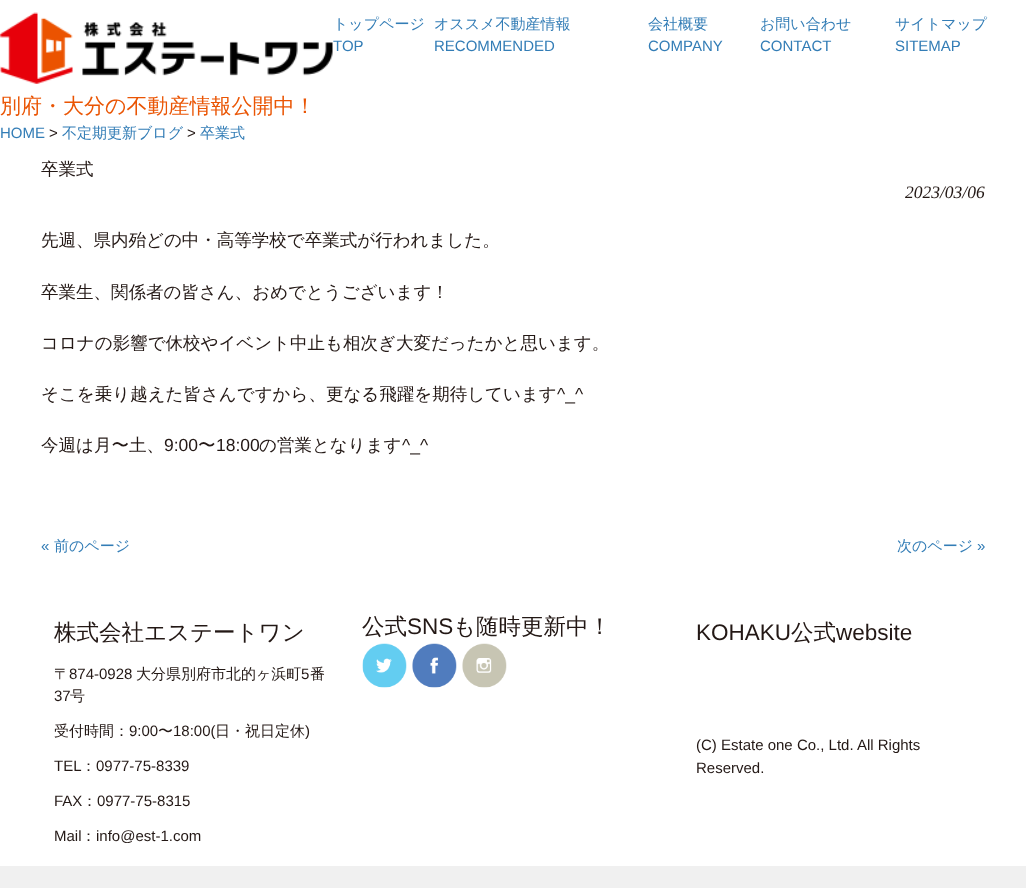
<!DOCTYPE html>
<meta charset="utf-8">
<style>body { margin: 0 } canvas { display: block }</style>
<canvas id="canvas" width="1026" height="888"></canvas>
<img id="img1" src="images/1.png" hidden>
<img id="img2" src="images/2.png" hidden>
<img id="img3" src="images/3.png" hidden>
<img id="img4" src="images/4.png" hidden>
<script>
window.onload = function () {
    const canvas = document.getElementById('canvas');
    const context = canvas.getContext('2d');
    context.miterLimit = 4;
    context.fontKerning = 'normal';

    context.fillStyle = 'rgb(240, 240, 240)';
    context.fillRect(0, 0, 1026, 888);
    context.fillStyle = 'rgb(255, 255, 255)';
    context.fillRect(0, 0, 1026, 866);
    context.drawImage(document.getElementById('img1'), 0, 12, 333, 72);
    context.drawImage(document.getElementById('img2'), 362, 643, 45, 45);
    context.drawImage(document.getElementById('img3'), 412, 643, 45, 45);
    context.drawImage(document.getElementById('img4'), 462, 643, 45, 45);
    context.font = '500 15px WenQuanYi Zen Hei';
    context.fillStyle = 'rgb(51, 125, 182)';
    context.fillText('トップページ', 333, 29);
    context.font = '15px Liberation Sans';
    context.fillText('TOP', 333, 51);
    context.font = '500 15px WenQuanYi Zen Hei';
    context.fillText('オススメ不動産情報', 434, 29);
    context.font = '15px Liberation Sans';
    context.fillText('RECOMMENDED', 434, 51);
    context.font = '500 15px WenQuanYi Zen Hei';
    context.fillText('会社概要', 648, 29);
    context.font = '15px Liberation Sans';
    context.fillText('COMPANY', 648, 51);
    context.font = '500 15px WenQuanYi Zen Hei';
    context.fillText('お問い合わせ', 760, 29);
    context.font = '15px Liberation Sans';
    context.fillText('CONTACT', 760, 51);
    context.font = '500 15px WenQuanYi Zen Hei';
    context.fillText('サイトマップ', 895, 29);
    context.font = '15px Liberation Sans';
    context.fillText('SITEMAP', 895, 51);
    context.font = '500 21px WenQuanYi Zen Hei';
    context.fillStyle = 'rgb(234, 85, 4)';
    context.fillText('別府・大分の不動産情報公開中！', 0, 113);
    context.font = '15px Liberation Sans';
    context.fillStyle = 'rgb(51, 125, 182)';
    context.fillText('HOME', 0, 138);
    context.fillStyle = 'rgb(35, 24, 21)';
    context.fillText('>', 49, 138);
    context.font = '500 15px WenQuanYi Zen Hei';
    context.fillStyle = 'rgb(51, 125, 182)';
    context.fillText('不定期更新ブログ', 62, 138);
    context.font = '15px Liberation Sans';
    context.fillStyle = 'rgb(35, 24, 21)';
    context.fillText('>', 187, 138);
    context.font = '500 15px WenQuanYi Zen Hei';
    context.fillStyle = 'rgb(51, 125, 182)';
    context.fillText('卒業式', 200, 138);
    context.font = '500 17.5px WenQuanYi Zen Hei';
    context.fillStyle = 'rgb(35, 24, 21)';
    context.fillText('卒業式', 41, 175);
    context.font = 'italic 17.5px Liberation Serif';
    context.fillText('2023/03/06', 905, 198);
    context.font = '500 17.5px WenQuanYi Zen Hei';
    context.fillText('先週、県内殆どの中・高等学校で卒業式が行われました。', 41, 246);
    context.fillText('卒業生、関係者の皆さん、おめでとうございます！', 41, 298);
    context.fillText('コロナの影響で休校やイベント中止も相次ぎ大変だったかと思います。', 41, 349);
    context.fillText('そこを乗り越えた皆さんですから、更なる飛躍を期待しています', 41, 400);
    context.font = '17.5px Liberation Sans';
    context.fillText('^_^', 557, 400);
    context.font = '500 17.5px WenQuanYi Zen Hei';
    context.fillText('今週は月〜土、', 41, 451);
    context.font = '17.5px Liberation Sans';
    context.fillText('9:00', 164, 451);
    context.font = '500 17.5px WenQuanYi Zen Hei';
    context.fillText('〜', 198, 451);
    context.font = '17.5px Liberation Sans';
    context.fillText('18:00', 216, 451);
    context.font = '500 17.5px WenQuanYi Zen Hei';
    context.fillText('の営業となります', 259, 451);
    context.font = '17.5px Liberation Sans';
    context.fillText('^_^', 402, 451);
    context.font = '15px Liberation Sans';
    context.fillStyle = 'rgb(51, 125, 182)';
    context.fillText('«', 41, 551);
    context.font = '500 15px WenQuanYi Zen Hei';
    context.fillText('前のページ', 54, 551);
    context.fillText('次のページ', 897, 551);
    context.font = '15px Liberation Sans';
    context.fillText('»', 977, 551);
    context.font = '500 22.5px WenQuanYi Zen Hei';
    context.fillStyle = 'rgb(35, 24, 21)';
    context.fillText('株式会社エステートワン', 54, 640);
    context.font = '500 15px WenQuanYi Zen Hei';
    context.fillText('〒', 54, 679);
    context.font = '15px Liberation Sans';
    context.fillText('874-0928', 69, 679);
    context.font = '500 15px WenQuanYi Zen Hei';
    context.fillText('大分県別府市北的ヶ浜町', 136, 679);
    context.font = '15px Liberation Sans';
    context.fillText('5', 301, 679);
    context.font = '500 15px WenQuanYi Zen Hei';
    context.fillText('番', 310, 679);
    context.font = '15px Liberation Sans';
    context.fillText('37', 54, 701);
    context.font = '500 15px WenQuanYi Zen Hei';
    context.fillText('号', 70, 701);
    context.fillText('受付時間：', 54, 736);
    context.font = '15px Liberation Sans';
    context.fillText('9:00', 129, 736);
    context.font = '500 15px WenQuanYi Zen Hei';
    context.fillText('〜', 158, 736);
    context.font = '15px Liberation Sans';
    context.fillText('18:00(', 173, 736);
    context.font = '500 15px WenQuanYi Zen Hei';
    context.fillText('日・祝日定休', 215, 736);
    context.font = '15px Liberation Sans';
    context.fillText(')', 305, 736);
    context.fillText('TEL', 54, 771);
    context.font = '500 15px WenQuanYi Zen Hei';
    context.fillText('：', 81, 771);
    context.font = '15px Liberation Sans';
    context.fillText('0977-75-8339', 96, 771);
    context.fillText('FAX', 54, 806);
    context.font = '500 15px WenQuanYi Zen Hei';
    context.fillText('：', 82, 806);
    context.font = '15px Liberation Sans';
    context.fillText('0977-75-8315', 97, 806);
    context.fillText('Mail', 54, 841);
    context.font = '500 15px WenQuanYi Zen Hei';
    context.fillText('：', 81, 841);
    context.font = '15px Liberation Sans';
    context.fillText('info@est-1.com', 96, 841);
    context.font = '500 22.5px WenQuanYi Zen Hei';
    context.fillText('公式', 362, 634);
    context.font = '22.5px Liberation Sans';
    context.fillText('SNS', 407, 634);
    context.font = '500 22.5px WenQuanYi Zen Hei';
    context.fillText('も随時更新中！', 453, 634);
    context.font = '22.5px Liberation Sans';
    context.fillText('KOHAKU', 696, 640);
    context.font = '500 22.5px WenQuanYi Zen Hei';
    context.fillText('公式', 791, 640);
    context.font = '22.5px Liberation Sans';
    context.fillText('website', 836, 640);
    context.font = '15px Liberation Sans';
    context.fillText('(C) Estate one Co., Ltd. All Rights', 696, 750);
    context.fillText('Reserved.', 696, 773);
};
</script>
